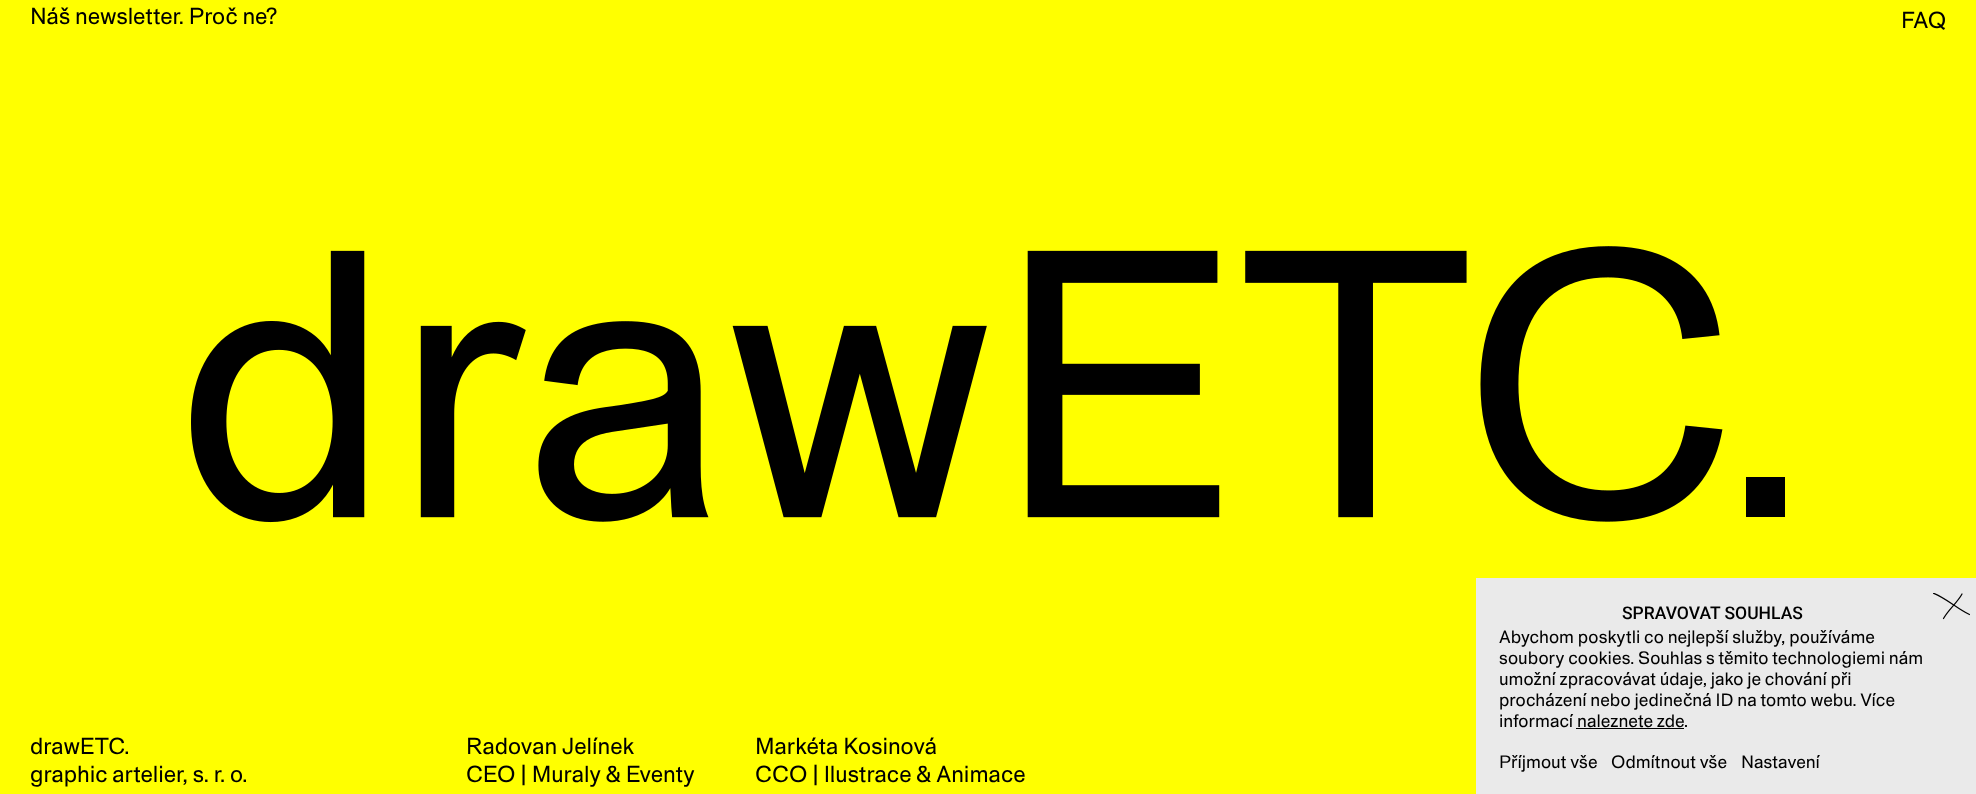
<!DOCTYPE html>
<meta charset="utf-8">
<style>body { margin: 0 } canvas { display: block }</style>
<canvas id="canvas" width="1976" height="794"></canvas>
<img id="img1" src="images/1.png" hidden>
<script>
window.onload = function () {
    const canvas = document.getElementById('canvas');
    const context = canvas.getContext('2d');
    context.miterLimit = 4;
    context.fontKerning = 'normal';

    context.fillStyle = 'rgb(255, 255, 0)';
    context.fillRect(0, 0, 1976, 794);
    context.drawImage(document.getElementById('img1'), 191, 246, 1594, 277);
    context.fillStyle = 'rgb(234, 234, 234)';
    context.fillRect(1476, 578, 500, 216);
    context.save();
    context.beginPath();
    context.rect(1933, 593, 37, 26);
    context.clip();
    context.beginPath();
    context.moveTo(1933, 593);
    context.bezierCurveTo(1946, 598, 1957, 608.5, 1969.5, 614.5);
    context.strokeStyle = 'rgb(0, 0, 0)';
    context.lineWidth = 1.2;
    context.lineCap = 'round';
    context.stroke();
    context.restore();
    context.beginPath();
    context.moveTo(1943.5, 618.5);
    context.bezierCurveTo(1948.5, 609.5, 1957.5, 602.5, 1962, 594);
    context.strokeStyle = 'rgb(0, 0, 0)';
    context.lineWidth = 1.2;
    context.lineCap = 'round';
    context.stroke();
    context.fillStyle = 'rgb(0, 0, 0)';
    context.fillRect(1576, 728, 108, 1);
    context.font = '22.5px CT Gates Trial';
    context.fillText('Náš newsletter. Proč ne?', 30, 24);
    context.fillText('FAQ', 1901, 28);
    context.fillText('drawETC.', 30, 754);
    context.fillText('graphic artelier, s. r. o.', 30, 782);
    context.fillText('Radovan Jelínek', 466, 754);
    context.fillText('CEO | Muraly & Eventy', 466, 782);
    context.fillText('Markéta Kosinová', 755, 754);
    context.fillText('CCO | Ilustrace & Animace', 755, 782);
    context.font = '500 17.5px Roboto';
    context.fillText('SPRAVOVAT SOUHLAS', 1622, 619);
    context.font = '17.5px CT Gates Trial';
    context.fillText('Abychom poskytli co nejlepší služby, používáme', 1499, 643);
    context.fillText('soubory cookies. Souhlas s těmito technologiemi nám', 1499, 664);
    context.fillText('umožní zpracovávat údaje, jako je chování při', 1499, 685);
    context.fillText('procházení nebo jedinečná ID na tomto webu. Více', 1499, 706);
    context.fillText('informací', 1499, 727);
    context.fillText('naleznete zde', 1577, 727);
    context.fillText('.', 1684, 727);
    context.fillText('Příjmout vše', 1499, 768);
    context.fillText('Odmítnout vše', 1611, 768);
    context.fillText('Nastavení', 1741, 768);
};
</script>
